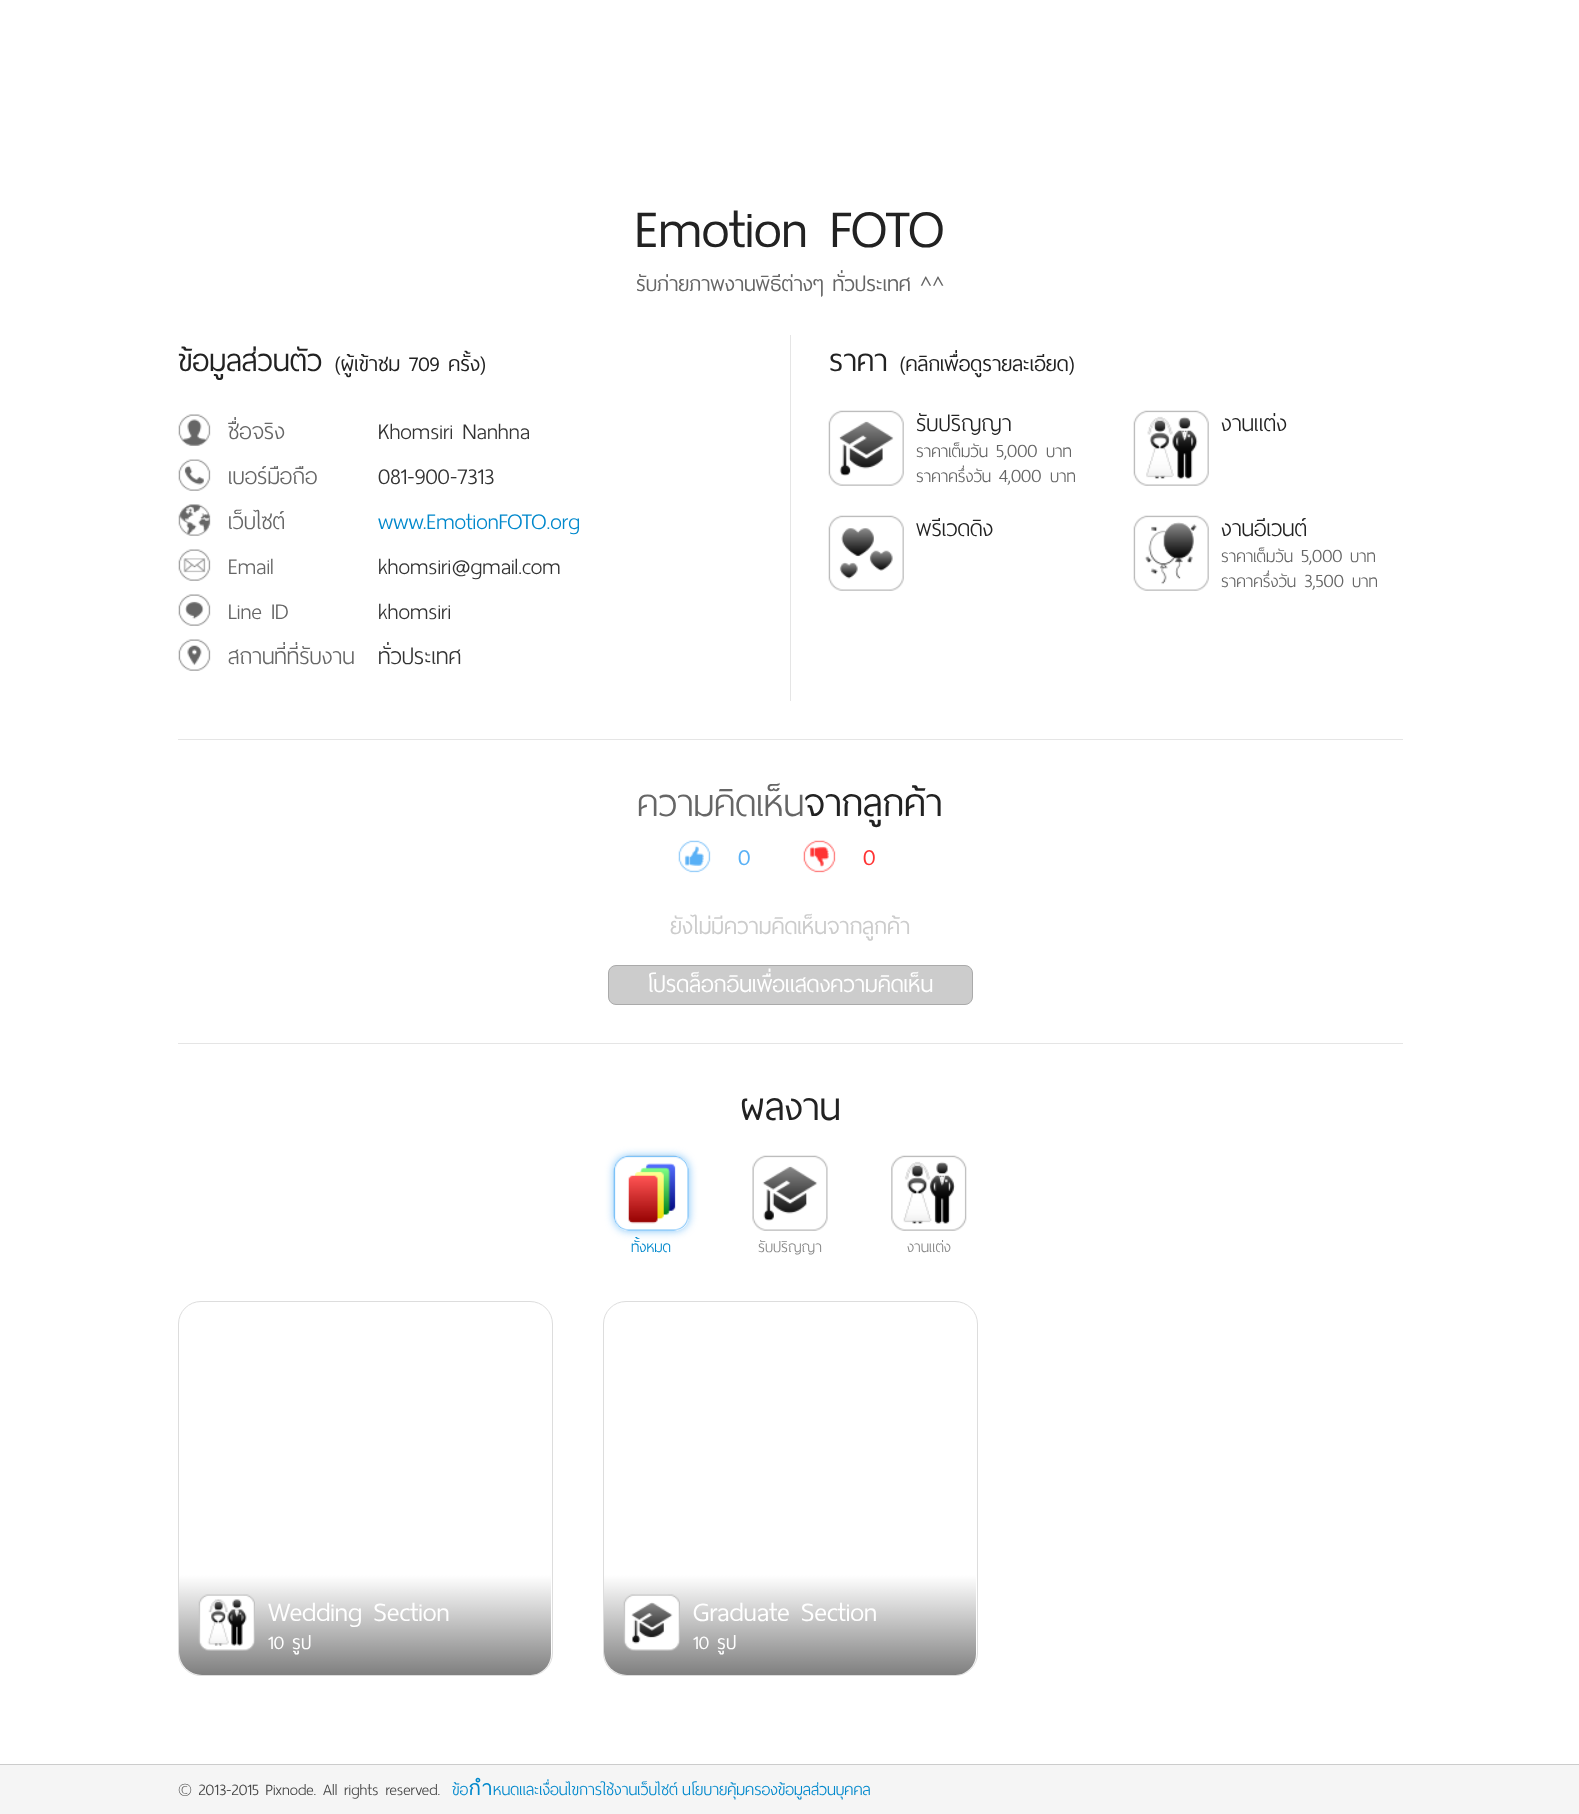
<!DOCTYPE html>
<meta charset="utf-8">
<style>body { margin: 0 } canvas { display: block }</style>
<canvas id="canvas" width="1579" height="1814"></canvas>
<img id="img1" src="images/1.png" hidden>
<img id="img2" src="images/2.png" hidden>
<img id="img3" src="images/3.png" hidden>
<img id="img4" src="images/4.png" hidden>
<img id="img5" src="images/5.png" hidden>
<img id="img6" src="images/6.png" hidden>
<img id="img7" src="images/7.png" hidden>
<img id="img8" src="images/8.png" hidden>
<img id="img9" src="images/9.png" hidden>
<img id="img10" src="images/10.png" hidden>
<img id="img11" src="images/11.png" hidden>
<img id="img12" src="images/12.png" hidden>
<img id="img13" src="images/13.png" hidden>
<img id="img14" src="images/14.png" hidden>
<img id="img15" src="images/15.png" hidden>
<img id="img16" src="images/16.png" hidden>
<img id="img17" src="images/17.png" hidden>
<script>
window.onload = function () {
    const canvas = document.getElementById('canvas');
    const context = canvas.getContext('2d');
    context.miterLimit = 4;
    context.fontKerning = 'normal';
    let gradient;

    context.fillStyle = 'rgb(245, 245, 245)';
    context.fillRect(0, 0, 1579, 1814);
    context.fillStyle = 'rgb(255, 255, 255)';
    context.fillRect(0, 0, 1579, 1764);
    context.drawImage(document.getElementById('img1'), 178, 414, 33, 32);
    context.drawImage(document.getElementById('img2'), 178, 459, 33, 32);
    context.drawImage(document.getElementById('img3'), 178, 504, 33, 32);
    context.drawImage(document.getElementById('img4'), 178, 549, 33, 32);
    context.drawImage(document.getElementById('img5'), 178, 594, 33, 32);
    context.drawImage(document.getElementById('img6'), 178, 639, 33, 32);
    context.fillStyle = 'rgb(229, 229, 229)';
    context.fillRect(790, 335, 1, 366);
    context.drawImage(document.getElementById('img7'), 828, 410, 76, 76);
    context.drawImage(document.getElementById('img8'), 1133, 410, 76, 76);
    context.drawImage(document.getElementById('img9'), 828, 515, 76, 76);
    context.drawImage(document.getElementById('img10'), 1133, 515, 76, 76);
    context.fillRect(178, 739, 1225, 1);
    context.drawImage(document.getElementById('img11'), 678, 840, 33, 33);
    context.drawImage(document.getElementById('img12'), 803, 840, 33, 33);
    context.fillStyle = 'rgb(204, 204, 204)';
    context.beginPath();
    context.roundRect(608.5, 965.5, 364, 39, 7.5);
    context.fill();
    context.strokeStyle = 'rgb(170, 170, 170)';
    context.stroke();
    context.fillStyle = 'rgb(229, 229, 229)';
    context.fillRect(178, 1043, 1225, 1);
    context.save();
    context.beginPath();
    context.moveTo(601, 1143);
    context.lineTo(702, 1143);
    context.lineTo(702, 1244);
    context.lineTo(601, 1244);
    context.closePath();
    context.moveTo(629, 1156);
    context.lineTo(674, 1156);
    context.bezierCurveTo(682.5, 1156, 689, 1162.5, 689, 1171);
    context.lineTo(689, 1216);
    context.bezierCurveTo(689, 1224.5, 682.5, 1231, 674, 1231);
    context.lineTo(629, 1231);
    context.bezierCurveTo(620.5, 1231, 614, 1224.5, 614, 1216);
    context.lineTo(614, 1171);
    context.bezierCurveTo(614, 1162.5, 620.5, 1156, 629, 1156);
    context.closePath();
    context.clip('evenodd');
    context.fillStyle = 'rgba(89, 177, 246, 0.75)';
    context.filter = 'blur(4px)';
    context.beginPath();
    context.roundRect(614, 1156, 75, 75, 15);
    context.fill();
    context.filter = 'none';
    context.restore();
    context.drawImage(document.getElementById('img13'), 613, 1155, 76, 76);
    context.drawImage(document.getElementById('img14'), 752, 1155, 76, 76);
    context.drawImage(document.getElementById('img15'), 891, 1155, 76, 76);
    context.beginPath();
    context.roundRect(178.5, 1301.5, 374, 374, 22.5);
    context.strokeStyle = 'rgb(221, 221, 221)';
    context.stroke();
    context.save();
    context.beginPath();
    context.roundRect(179, 1303, 372, 372, 21);
    context.clip();
    gradient = context.createLinearGradient(366, 1575, 366, 1675);
    gradient.addColorStop(0, 'rgba(0, 0, 0, 0)');
    gradient.addColorStop(1, 'rgba(0, 0, 0, 0.5)');
    context.fillStyle = gradient;
    context.beginPath();
    context.roundRect(179, 1575, 375, 100, [0, 0, 23, 23]);
    context.fill();
    context.restore();
    context.drawImage(document.getElementById('img16'), 198, 1594, 57, 57);
    context.beginPath();
    context.roundRect(603.5, 1301.5, 374, 374, 22.5);
    context.stroke();
    context.save();
    context.beginPath();
    context.roundRect(604, 1303, 372, 372, 21);
    context.clip();
    gradient = context.createLinearGradient(791, 1575, 791, 1675);
    gradient.addColorStop(0, 'rgba(0, 0, 0, 0)');
    gradient.addColorStop(1, 'rgba(0, 0, 0, 0.5)');
    context.fillStyle = gradient;
    context.beginPath();
    context.roundRect(604, 1575, 375, 100, [0, 0, 23, 23]);
    context.fill();
    context.restore();
    context.drawImage(document.getElementById('img17'), 623, 1594, 57, 57);
    context.fillStyle = 'rgb(204, 204, 204)';
    context.fillRect(0, 1764, 1579, 1);
    context.font = '70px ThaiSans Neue';
    context.fillStyle = 'rgb(34, 34, 34)';
    context.fillText('Emotion FOTO', 635, 247);
    context.font = '27.5px ThaiSans Neue';
    context.fillStyle = 'rgb(102, 102, 102)';
    context.fillText('รับภ่ายภาพงานพิธีต่างๆ ทั่วประเทศ ^^', 636, 291);
    context.font = '40px ThaiSans Neue';
    context.fillStyle = 'rgb(34, 34, 34)';
    context.fillText('ข้อมูลส่วนตัว', 178, 371);
    context.font = '27.5px ThaiSans Neue';
    context.fillText('(ผู้เข้าชม 709 ครั้ง)', 335, 371);
    context.font = '300 30px ThaiSans Neue';
    context.fillStyle = 'rgb(102, 102, 102)';
    context.fillText('ชื่อจริง', 228, 439);
    context.fillStyle = 'rgb(51, 51, 51)';
    context.fillText('Khomsiri Nanhna', 378, 439);
    context.fillStyle = 'rgb(102, 102, 102)';
    context.fillText('เบอร์มือถือ', 228, 484);
    context.fillStyle = 'rgb(51, 51, 51)';
    context.fillText('081-900-7313', 378, 484);
    context.fillStyle = 'rgb(102, 102, 102)';
    context.fillText('เว็บไซต์', 228, 529);
    context.fillStyle = 'rgb(0, 136, 204)';
    context.fillText('www.EmotionFOTO.org', 378, 529);
    context.fillStyle = 'rgb(102, 102, 102)';
    context.fillText('Email', 228, 574);
    context.fillStyle = 'rgb(51, 51, 51)';
    context.fillText('khomsiri@gmail.com', 378, 574);
    context.fillStyle = 'rgb(102, 102, 102)';
    context.fillText('Line ID', 228, 619);
    context.fillStyle = 'rgb(51, 51, 51)';
    context.fillText('khomsiri', 378, 619);
    context.fillStyle = 'rgb(102, 102, 102)';
    context.fillText('สถานที่ที่รับงาน', 228, 664);
    context.fillStyle = 'rgb(51, 51, 51)';
    context.fillText('ทั่วประเทศ', 378, 664);
    context.font = '40px ThaiSans Neue';
    context.fillStyle = 'rgb(34, 34, 34)';
    context.fillText('ราคา', 829, 371);
    context.font = '27.5px ThaiSans Neue';
    context.fillText('(คลิกเพื่อดูรายละเอียด)', 900, 371);
    context.font = '300 30px ThaiSans Neue';
    context.fillText('รับปริญญา', 916, 431);
    context.font = '300 22.5px ThaiSans Neue';
    context.fillStyle = 'rgb(102, 102, 102)';
    context.fillText('ราคาเต็มวัน', 916, 457);
    context.font = '300 25px ThaiSans Neue';
    context.fillText('5,000', 996, 457);
    context.font = '300 22.5px ThaiSans Neue';
    context.fillText('บาท', 1046, 457);
    context.fillText('ราคาครึ่งวัน', 916, 482);
    context.font = '300 25px ThaiSans Neue';
    context.fillText('4,000', 999, 482);
    context.font = '300 22.5px ThaiSans Neue';
    context.fillText('บาท', 1050, 482);
    context.font = '300 30px ThaiSans Neue';
    context.fillStyle = 'rgb(34, 34, 34)';
    context.fillText('งานแต่ง', 1221, 431);
    context.fillText('พรีเวดดิง', 916, 536);
    context.fillText('งานอีเวนต์', 1221, 536);
    context.font = '300 22.5px ThaiSans Neue';
    context.fillStyle = 'rgb(102, 102, 102)';
    context.fillText('ราคาเต็มวัน', 1221, 562);
    context.font = '300 25px ThaiSans Neue';
    context.fillText('5,000', 1301, 562);
    context.font = '300 22.5px ThaiSans Neue';
    context.fillText('บาท', 1350, 562);
    context.fillText('ราคาครึ่งวัน', 1221, 587);
    context.font = '300 25px ThaiSans Neue';
    context.fillText('3,500', 1304, 587);
    context.font = '300 22.5px ThaiSans Neue';
    context.fillText('บาท', 1352, 587);
    context.font = '300 50px ThaiSans Neue';
    context.fillText('ความคิดเห็น', 637, 816);
    context.font = '50px ThaiSans Neue';
    context.fillStyle = 'rgb(34, 34, 34)';
    context.fillText('จากลูกค้า', 804, 816);
    context.font = '30px ThaiSans Neue';
    context.fillStyle = 'rgb(89, 177, 246)';
    context.fillText('0', 738, 865);
    context.fillStyle = 'rgb(255, 51, 51)';
    context.fillText('0', 863, 865);
    context.fillStyle = 'rgb(204, 204, 204)';
    context.fillText('ยังไม่มีความคิดเห็นจากลูกค้า', 670, 934);
    context.fillStyle = 'rgb(255, 255, 255)';
    context.fillText('โปรดล็อกอินเพื่อแสดงความคิดเห็น', 647, 992);
    context.font = '50px ThaiSans Neue';
    context.fillStyle = 'rgb(34, 34, 34)';
    context.fillText('ผลงาน', 740, 1120);
    context.font = '300 20px ThaiSans Neue';
    context.fillStyle = 'rgb(0, 136, 204)';
    context.fillText('ทั้งหมด', 631, 1252);
    context.fillStyle = 'rgb(136, 136, 136)';
    context.fillText('รับปริญญา', 758, 1252);
    context.fillText('งานแต่ง', 907, 1252);
    context.font = '35px ThaiSans Neue';
    context.fillStyle = 'rgb(255, 255, 255)';
    context.fillText('Wedding Section', 268, 1621);
    context.font = '25px ThaiSans Neue';
    context.fillText('10 รูป', 268, 1649);
    context.font = '35px ThaiSans Neue';
    context.fillText('Graduate Section', 693, 1621);
    context.font = '25px ThaiSans Neue';
    context.fillText('10 รูป', 693, 1649);
    context.font = '300 21.25px ThaiSans Neue';
    context.fillStyle = 'rgb(68, 68, 68)';
    context.fillText('© 2013-2015 Pixnode. All rights reserved.', 178, 1795);
    context.fillStyle = 'rgb(0, 136, 204)';
    context.fillText('ข้อกำหนดและเงื่อนไขการใช้งานเว็บไซต์', 452, 1795);
    context.fillText('นโยบายคุ้มครองข้อมูลส่วนบุคคล', 682, 1795);
};
</script>
